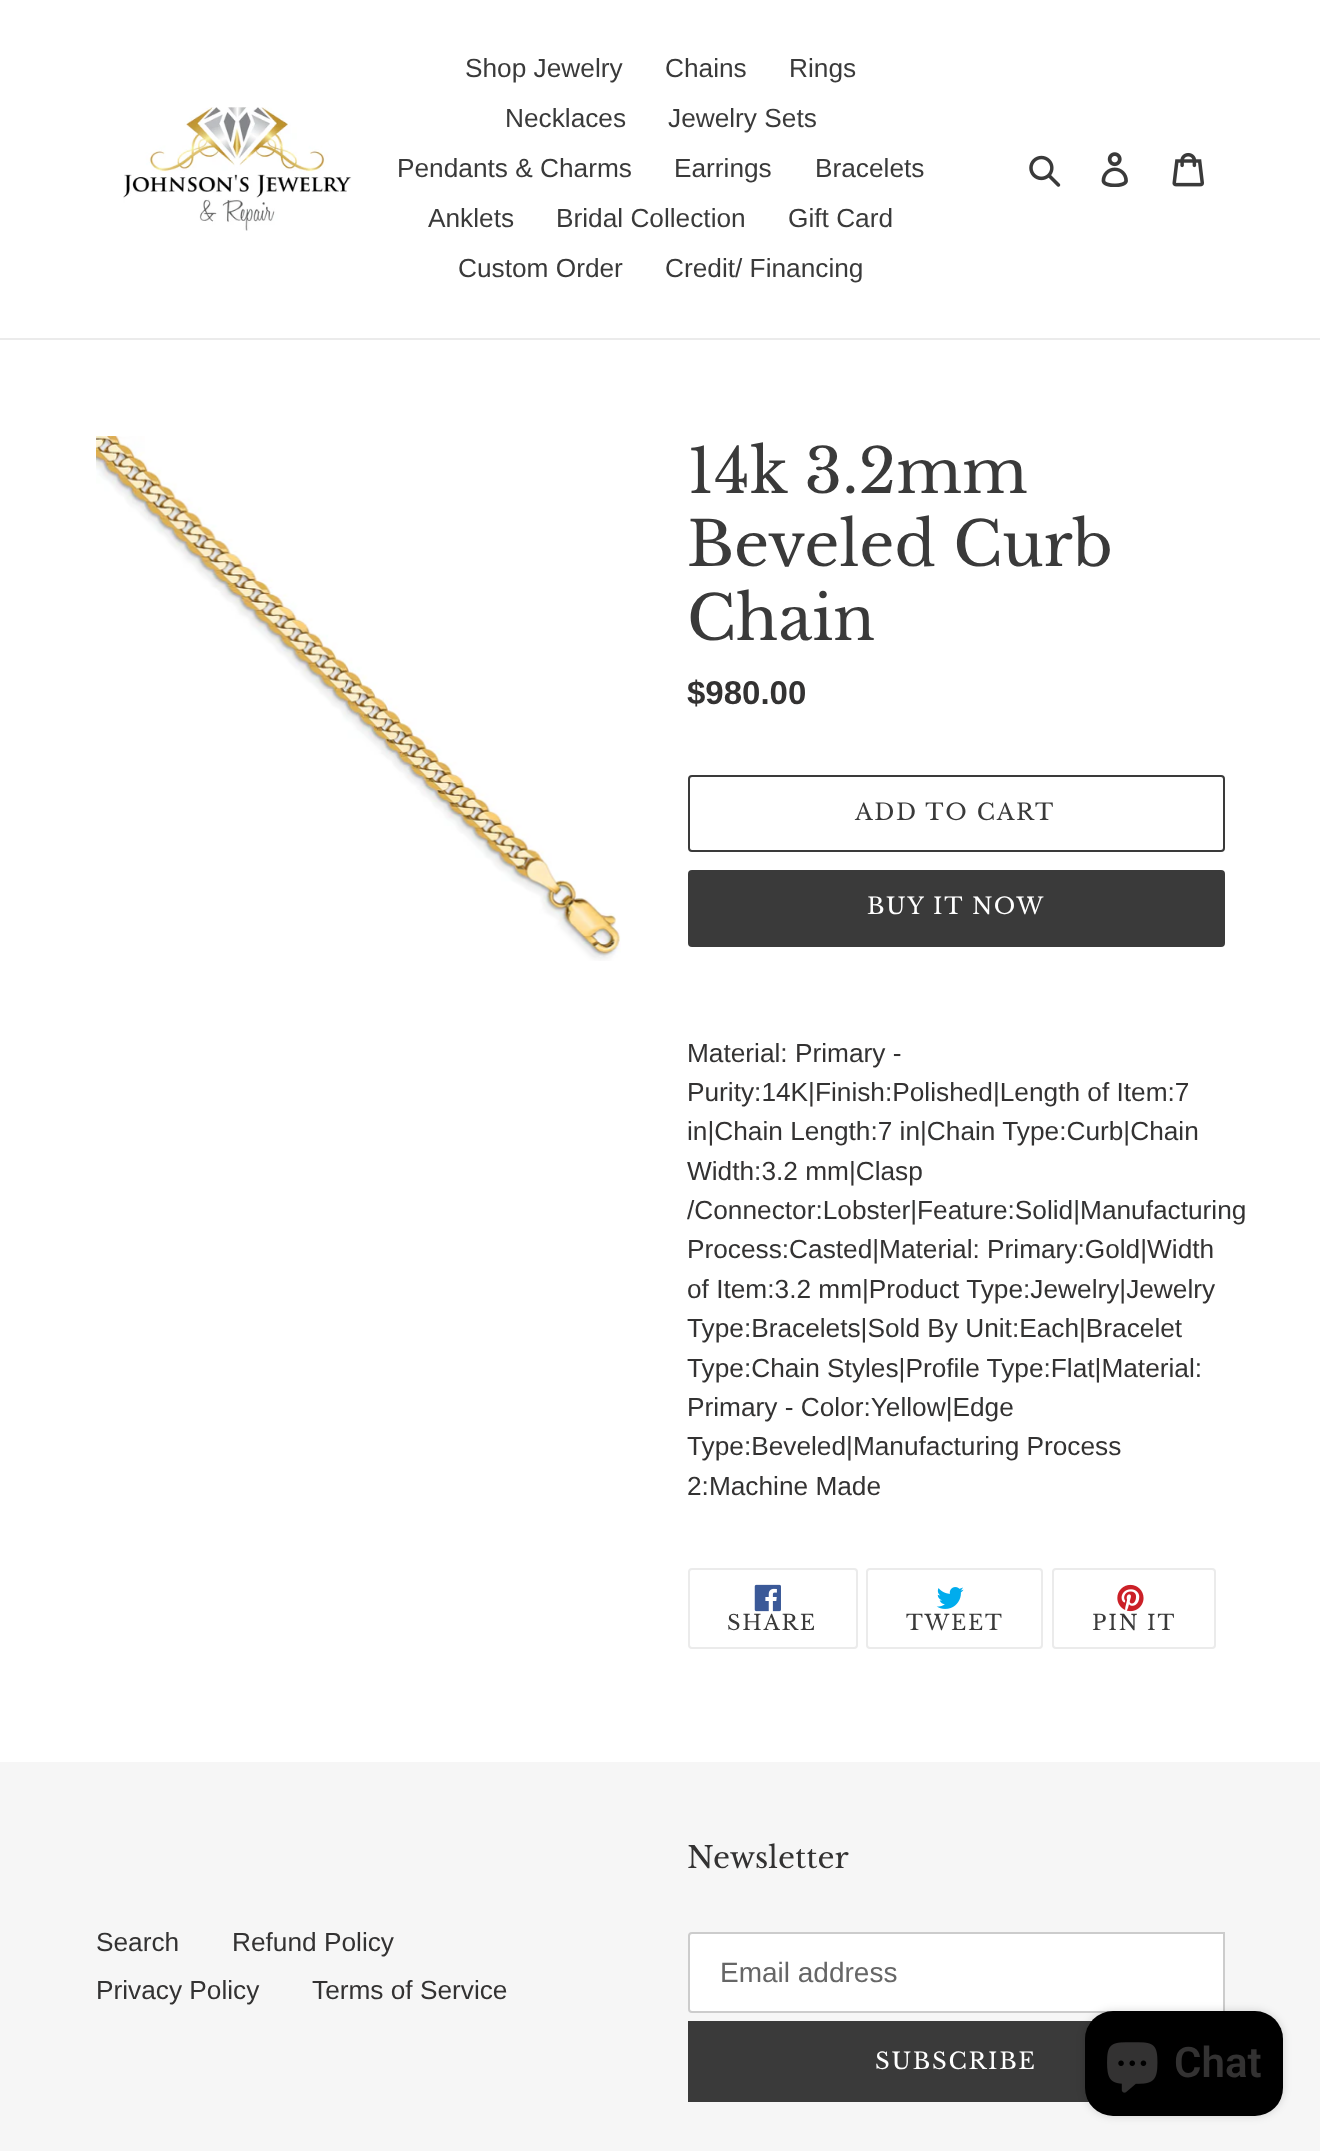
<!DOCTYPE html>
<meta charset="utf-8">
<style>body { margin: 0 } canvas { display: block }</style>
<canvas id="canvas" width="1320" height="2151"></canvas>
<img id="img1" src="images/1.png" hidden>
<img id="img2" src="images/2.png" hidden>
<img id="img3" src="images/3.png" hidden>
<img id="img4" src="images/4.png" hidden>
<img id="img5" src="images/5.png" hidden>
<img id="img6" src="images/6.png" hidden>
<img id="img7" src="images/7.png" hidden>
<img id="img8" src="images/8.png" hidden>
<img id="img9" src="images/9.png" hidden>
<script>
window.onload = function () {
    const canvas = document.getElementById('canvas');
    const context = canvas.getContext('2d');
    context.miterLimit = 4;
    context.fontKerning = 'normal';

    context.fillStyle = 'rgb(255, 255, 255)';
    context.fillRect(0, 0, 1320, 2151);
    context.fillStyle = 'rgb(235, 235, 235)';
    context.fillRect(0, 338, 1320, 2);
    context.drawImage(document.getElementById('img1'), 123, 107, 229, 124);
    context.drawImage(document.getElementById('img2'), 1029, 155, 32, 32);
    context.drawImage(document.getElementById('img3'), 1101, 152, 27, 35);
    context.drawImage(document.getElementById('img4'), 1172, 152, 32, 35);
    context.drawImage(document.getElementById('img5'), 96, 436, 525, 525);
    context.beginPath();
    context.roundRect(689, 776, 535, 75, 3);
    context.strokeStyle = 'rgb(58, 58, 58)';
    context.lineWidth = 2;
    context.stroke();
    context.fillStyle = 'rgb(58, 58, 58)';
    context.beginPath();
    context.roundRect(688, 870, 537, 77, 4);
    context.fill();
    context.beginPath();
    context.roundRect(689, 1569, 168, 79, 3);
    context.strokeStyle = 'rgb(235, 235, 235)';
    context.stroke();
    context.drawImage(document.getElementById('img6'), 754, 1584, 27, 28);
    context.beginPath();
    context.roundRect(867, 1569, 175, 79, 3);
    context.stroke();
    context.drawImage(document.getElementById('img7'), 936, 1587, 28, 22);
    context.beginPath();
    context.roundRect(1053, 1569, 162, 79, 3);
    context.stroke();
    context.drawImage(document.getElementById('img8'), 1117, 1584, 27, 28);
    context.fillStyle = 'rgb(246, 246, 246)';
    context.fillRect(0, 1762, 1320, 389);
    context.fillStyle = 'rgb(255, 255, 255)';
    context.beginPath();
    context.roundRect(689, 1933, 535, 79, [3, 0, 0, 3]);
    context.fill();
    context.strokeStyle = 'rgb(204, 204, 204)';
    context.stroke();
    context.fillStyle = 'rgb(58, 58, 58)';
    context.fillRect(688, 2021, 404, 81);
    context.fillStyle = 'rgba(0, 0, 0, 0.15)';
    context.filter = 'blur(4.5px)';
    context.beginPath();
    context.roundRect(1085, 2011, 198, 105, 28);
    context.fill();
    context.filter = 'none';
    context.fillStyle = 'rgb(0, 0, 0)';
    context.beginPath();
    context.roundRect(1085, 2011, 198, 105, 28);
    context.fill();
    context.drawImage(document.getElementById('img9'), 1107, 2042, 51, 51);
    context.font = '26.25px Liberation Sans';
    context.fillStyle = 'rgb(58, 58, 58)';
    context.fillText('Shop Jewelry', 465, 77);
    context.fillText('Chains', 665, 77);
    context.fillText('Rings', 789, 77);
    context.fillText('Necklaces', 505, 127);
    context.fillText('Jewelry Sets', 668, 127);
    context.fillText('Pendants & Charms', 397, 177);
    context.fillText('Earrings', 674, 177);
    context.fillText('Bracelets', 815, 177);
    context.fillText('Anklets', 428, 227);
    context.fillText('Bridal Collection', 556, 227);
    context.fillText('Gift Card', 788, 227);
    context.fillText('Custom Order', 458, 277);
    context.fillText('Credit/ Financing', 665, 277);
    context.font = '61.25px Libre Baskerville';
    context.fillText('14k 3.2mm', 687, 493);
    context.fillText('Beveled Curb', 687, 566);
    context.fillText('Chain', 687, 640);
    context.font = 'bold 33px Liberation Sans';
    context.fillStyle = 'rgb(51, 50, 50)';
    context.fillText('$980.00', 687, 704);
    context.letterSpacing = '1.75px';
    context.font = '22.75px Libre Baskerville';
    context.fillStyle = 'rgb(58, 58, 58)';
    context.fillText('ADD TO CART', 855, 820);
    context.fillStyle = 'rgb(255, 255, 255)';
    context.fillText('BUY IT NOW', 867, 914);
    context.letterSpacing = '0px';
    context.font = '26.25px Liberation Sans';
    context.fillStyle = 'rgb(51, 50, 50)';
    context.fillText('Material: Primary -', 687, 1062);
    context.fillText('Purity:14K|Finish:Polished|Length of Item:7', 687, 1101);
    context.fillText('in|Chain Length:7 in|Chain Type:Curb|Chain', 687, 1140);
    context.fillText('Width:3.2 mm|Clasp', 687, 1180);
    context.fillText('/Connector:Lobster|Feature:Solid|Manufacturing', 687, 1219);
    context.fillText('Process:Casted|Material: Primary:Gold|Width', 687, 1258);
    context.fillText('of Item:3.2 mm|Product Type:Jewelry|Jewelry', 687, 1298);
    context.fillText('Type:Bracelets|Sold By Unit:Each|Bracelet', 687, 1337);
    context.fillText('Type:Chain Styles|Profile Type:Flat|Material:', 687, 1377);
    context.fillText('Primary - Color:Yellow|Edge', 687, 1416);
    context.fillText('Type:Beveled|Manufacturing Process', 687, 1455);
    context.fillText('2:Machine Made', 687, 1495);
    context.letterSpacing = '1.75px';
    context.font = '21px Libre Baskerville';
    context.fillStyle = 'rgb(58, 58, 58)';
    context.fillText('SHARE', 727, 1630);
    context.fillText('TWEET', 906, 1630);
    context.fillText('PIN IT', 1092, 1630);
    context.letterSpacing = '0px';
    context.font = '26.25px Liberation Sans';
    context.fillStyle = 'rgb(51, 50, 50)';
    context.fillText('Search', 96, 1951);
    context.fillText('Refund Policy', 232, 1951);
    context.fillText('Privacy Policy', 96, 1999);
    context.fillText('Terms of Service', 312, 1999);
    context.font = '29.75px Libre Baskerville';
    context.fillText('Newsletter', 687, 1868);
    context.font = '28px Liberation Sans';
    context.fillStyle = 'rgb(102, 102, 102)';
    context.fillText('Email address', 720, 1982);
    context.letterSpacing = '1.75px';
    context.font = '22.75px Libre Baskerville';
    context.fillStyle = 'rgb(255, 255, 255)';
    context.fillText('SUBSCRIBE', 875, 2069);
    context.letterSpacing = '0px';
    context.font = '600 42px Roboto';
    context.fillStyle = 'rgb(51, 50, 50)';
    context.fillText('Chat', 1174, 2077);
};
</script>
